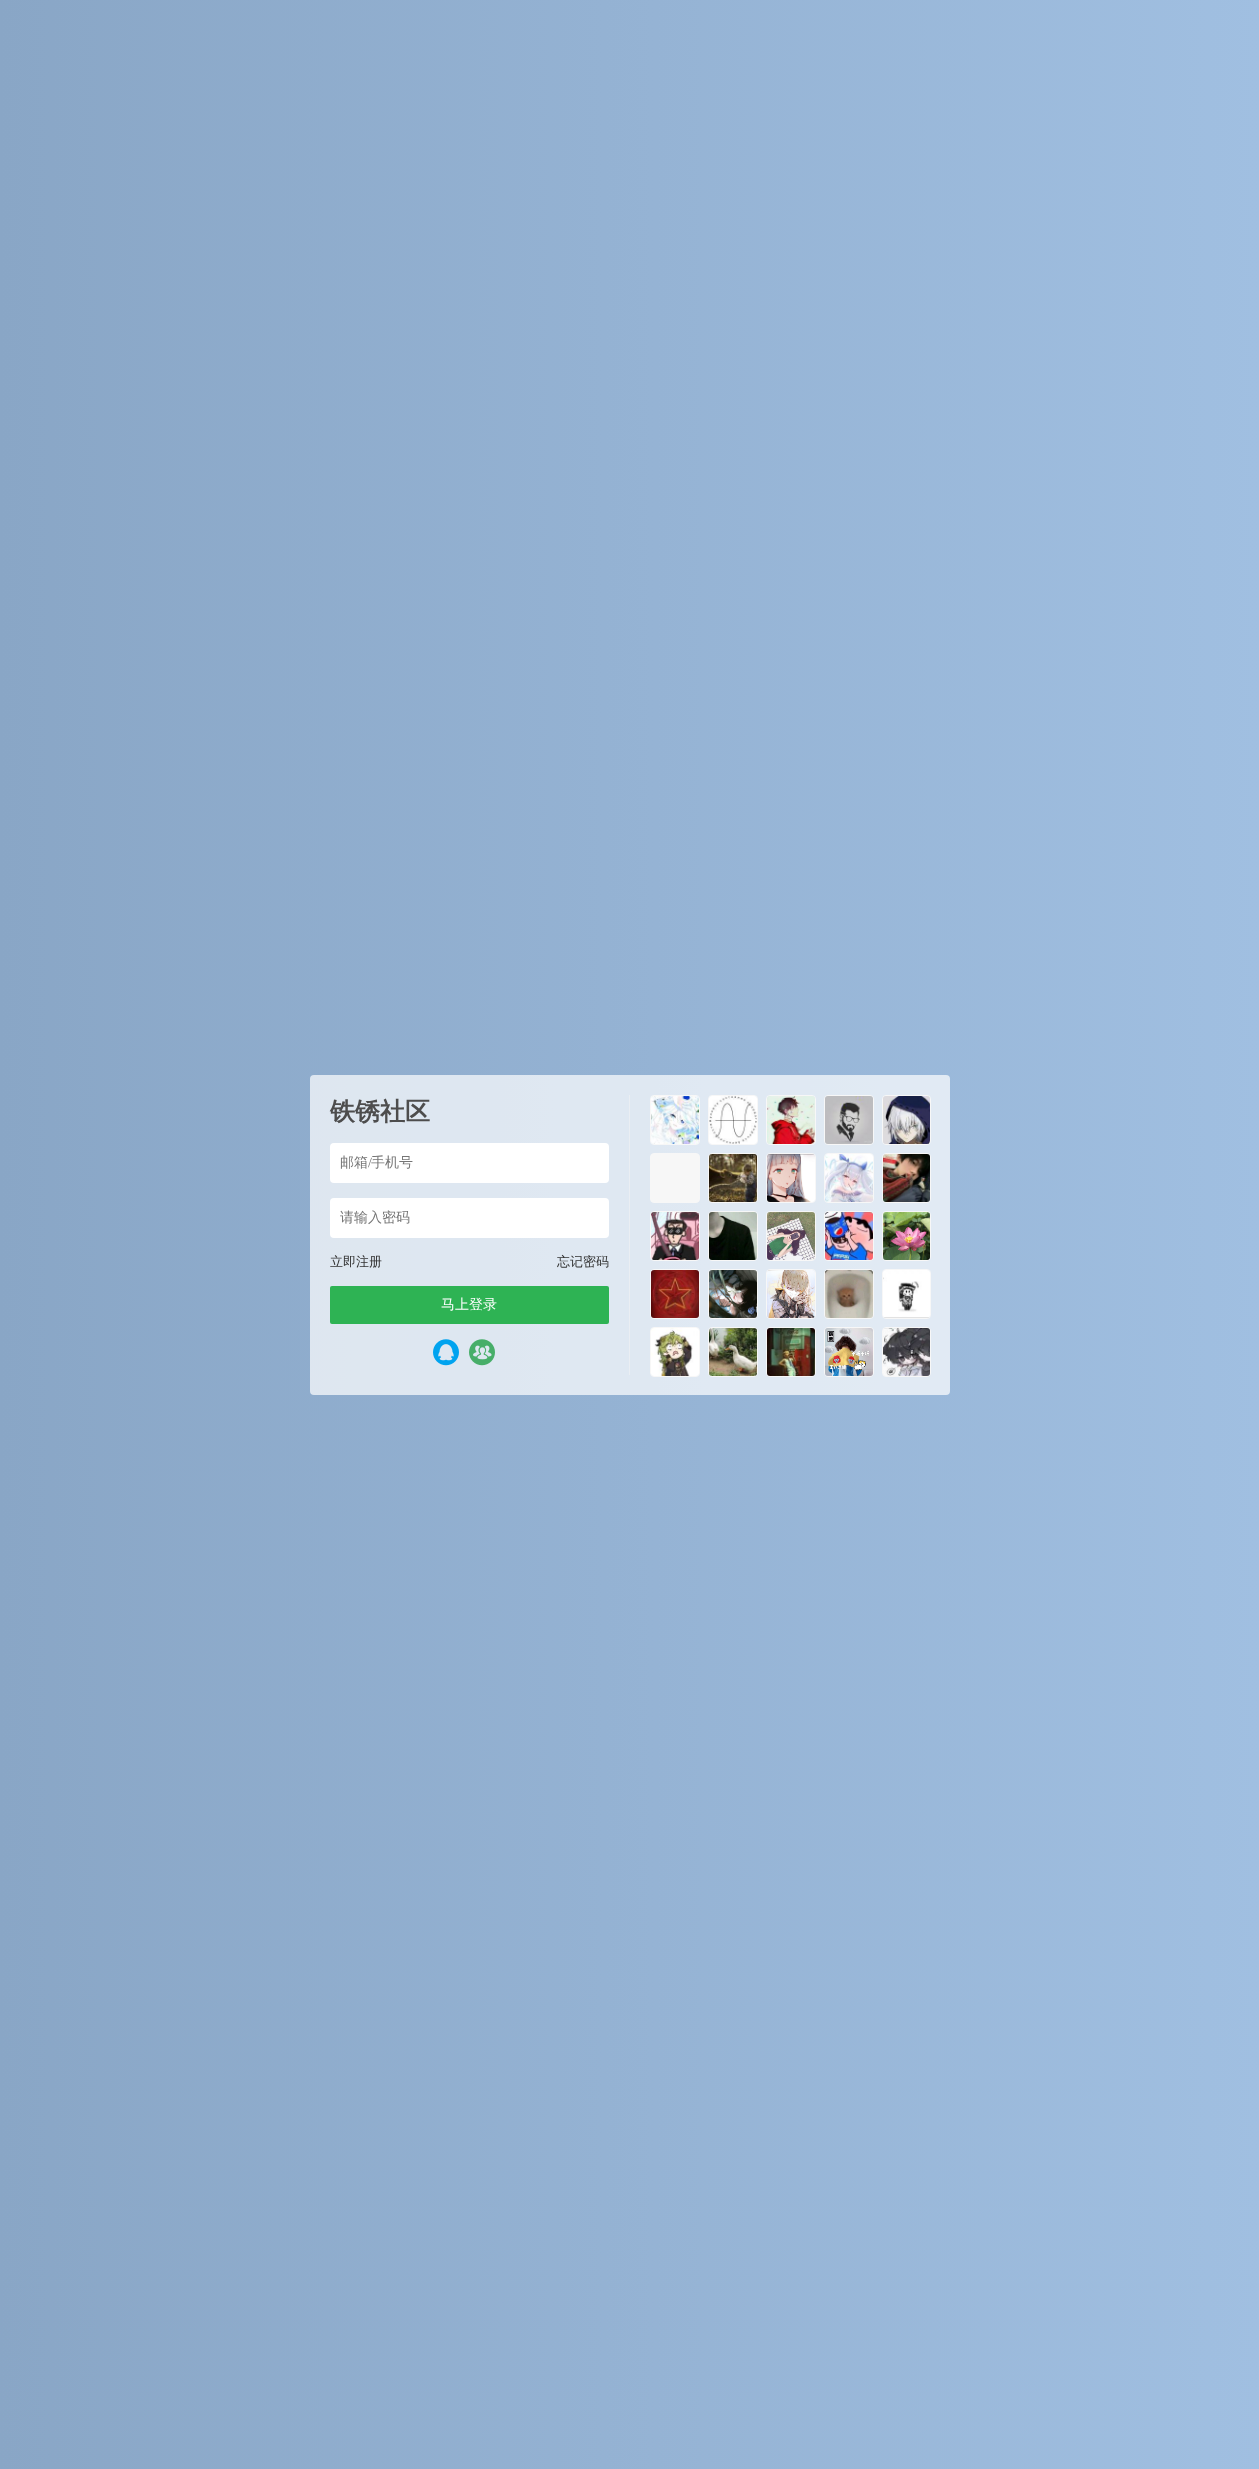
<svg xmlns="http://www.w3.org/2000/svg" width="1259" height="2469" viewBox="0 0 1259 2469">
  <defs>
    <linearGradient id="g1" gradientUnits="userSpaceOnUse" x1="0" y1="1235" x2="1259" y2="1235"><stop offset="0" stop-color="#89a6c6"/><stop offset="1" stop-color="#a0bfe1"/></linearGradient>
  </defs>
  <rect width="100%" height="100%" fill="#fff"/>
  <path d="M0 0h1259v2469H0z" fill="url(#g1)"/>
  <rect x="310" y="1075" width="640" height="320" rx="4" fill="#ffffffb3"/>
  <path d="M629 1095h1v280H629z" fill="#eaeef3"/>
  <rect x="330" y="1143" width="279" height="40" rx="4" fill="#fff"/>
  <rect x="330" y="1198" width="279" height="40" rx="4" fill="#fff"/>
  <rect x="330" y="1286" width="279" height="38" rx="2" fill="#2eb354"/>
  <image x="433" y="1339" width="26" height="27" href="img/1.png"/>
  <image x="469" y="1339" width="26" height="27" href="img/2.png"/>
  <rect x="650.5" y="1095.5" width="49" height="49" rx="3.5" fill="none" stroke="#f7f7f7"/>
  <image x="651" y="1096" width="48" height="48" href="img/3.png"/>
  <rect x="708.5" y="1095.5" width="49" height="49" rx="3.5" fill="none" stroke="#f7f7f7"/>
  <image x="709" y="1096" width="48" height="48" href="img/4.png"/>
  <rect x="766.5" y="1095.5" width="49" height="49" rx="3.5" fill="none" stroke="#f7f7f7"/>
  <image x="767" y="1096" width="48" height="48" href="img/5.png"/>
  <rect x="824.5" y="1095.5" width="49" height="49" rx="3.5" fill="none" stroke="#f7f7f7"/>
  <image x="825" y="1096" width="48" height="48" href="img/6.png"/>
  <rect x="882.5" y="1095.5" width="48" height="49" rx="3.5" fill="none" stroke="#f7f7f7"/>
  <image x="883" y="1096" width="47" height="48" href="img/7.png"/>
  <rect x="650.5" y="1153.5" width="49" height="49" rx="3.5" fill="#f7f7f7" stroke="#f7f7f7"/>
  <rect x="708.5" y="1153.5" width="49" height="49" rx="3.5" fill="none" stroke="#f7f7f7"/>
  <image x="709" y="1154" width="48" height="48" href="img/8.png"/>
  <rect x="766.5" y="1153.5" width="49" height="49" rx="3.5" fill="none" stroke="#f7f7f7"/>
  <image x="767" y="1154" width="48" height="48" href="img/9.png"/>
  <rect x="824.5" y="1153.5" width="49" height="49" rx="3.5" fill="none" stroke="#f7f7f7"/>
  <image x="825" y="1154" width="48" height="48" href="img/10.png"/>
  <rect x="882.5" y="1153.5" width="48" height="49" rx="3.5" fill="none" stroke="#f7f7f7"/>
  <image x="883" y="1154" width="47" height="48" href="img/11.png"/>
  <rect x="650.5" y="1211.5" width="49" height="49" rx="3.5" fill="none" stroke="#f7f7f7"/>
  <image x="651" y="1212" width="48" height="48" href="img/12.png"/>
  <rect x="708.5" y="1211.5" width="49" height="49" rx="3.5" fill="none" stroke="#f7f7f7"/>
  <image x="709" y="1212" width="48" height="48" href="img/13.png"/>
  <rect x="766.5" y="1211.5" width="49" height="49" rx="3.5" fill="none" stroke="#f7f7f7"/>
  <image x="767" y="1212" width="48" height="48" href="img/14.png"/>
  <rect x="824.5" y="1211.5" width="49" height="49" rx="3.5" fill="none" stroke="#f7f7f7"/>
  <image x="825" y="1212" width="48" height="48" href="img/15.png"/>
  <rect x="882.5" y="1211.5" width="48" height="49" rx="3.5" fill="none" stroke="#f7f7f7"/>
  <image x="883" y="1212" width="47" height="48" href="img/16.png"/>
  <rect x="650.5" y="1269.5" width="49" height="49" rx="3.5" fill="none" stroke="#f7f7f7"/>
  <image x="651" y="1270" width="48" height="48" href="img/17.png"/>
  <rect x="708.5" y="1269.5" width="49" height="49" rx="3.5" fill="none" stroke="#f7f7f7"/>
  <image x="709" y="1270" width="48" height="48" href="img/18.png"/>
  <rect x="766.5" y="1269.5" width="49" height="49" rx="3.5" fill="none" stroke="#f7f7f7"/>
  <image x="767" y="1270" width="48" height="48" href="img/19.png"/>
  <rect x="824.5" y="1269.5" width="49" height="49" rx="3.5" fill="none" stroke="#f7f7f7"/>
  <image x="825" y="1270" width="48" height="48" href="img/20.png"/>
  <rect x="882.5" y="1269.5" width="48" height="49" rx="3.5" fill="none" stroke="#f7f7f7"/>
  <image x="883" y="1270" width="47" height="48" href="img/21.png"/>
  <rect x="650.5" y="1327.5" width="49" height="49" rx="3.5" fill="none" stroke="#f7f7f7"/>
  <image x="651" y="1328" width="48" height="48" href="img/22.png"/>
  <rect x="708.5" y="1327.5" width="49" height="49" rx="3.5" fill="none" stroke="#f7f7f7"/>
  <image x="709" y="1328" width="48" height="48" href="img/23.png"/>
  <rect x="766.5" y="1327.5" width="49" height="49" rx="3.5" fill="none" stroke="#f7f7f7"/>
  <image x="767" y="1328" width="48" height="48" href="img/24.png"/>
  <rect x="824.5" y="1327.5" width="49" height="49" rx="3.5" fill="none" stroke="#f7f7f7"/>
  <image x="825" y="1328" width="48" height="48" href="img/25.png"/>
  <rect x="882.5" y="1327.5" width="48" height="49" rx="3.5" fill="none" stroke="#f7f7f7"/>
  <image x="883" y="1328" width="47" height="48" href="img/26.png"/>
  <text x="330" y="1120" font-family="WenQuanYi Zen Hei" font-size="25" font-weight="bold" fill="#4d4d4d">铁锈社区</text>
  <text x="340" y="1167" font-family="WenQuanYi Zen Hei" font-size="14" font-weight="500" fill="#757575">邮箱</text>
  <text x="368" y="1167" font-family="Liberation Serif" font-size="14" fill="#757575">/</text>
  <g font-family="WenQuanYi Zen Hei" font-size="14" font-weight="500" fill="#757575">
    <text x="371" y="1167">手机号</text>
    <text x="340" y="1222">请输入密码</text>
  </g>
  <g font-family="WenQuanYi Zen Hei" font-size="13" font-weight="500" fill="#333">
    <text x="330" y="1266">立即注册</text>
    <text x="557" y="1266">忘记密码</text>
  </g>
  <text x="441" y="1309" font-family="WenQuanYi Zen Hei" font-size="14" font-weight="500" fill="#fff">马上登录</text>
</svg>
